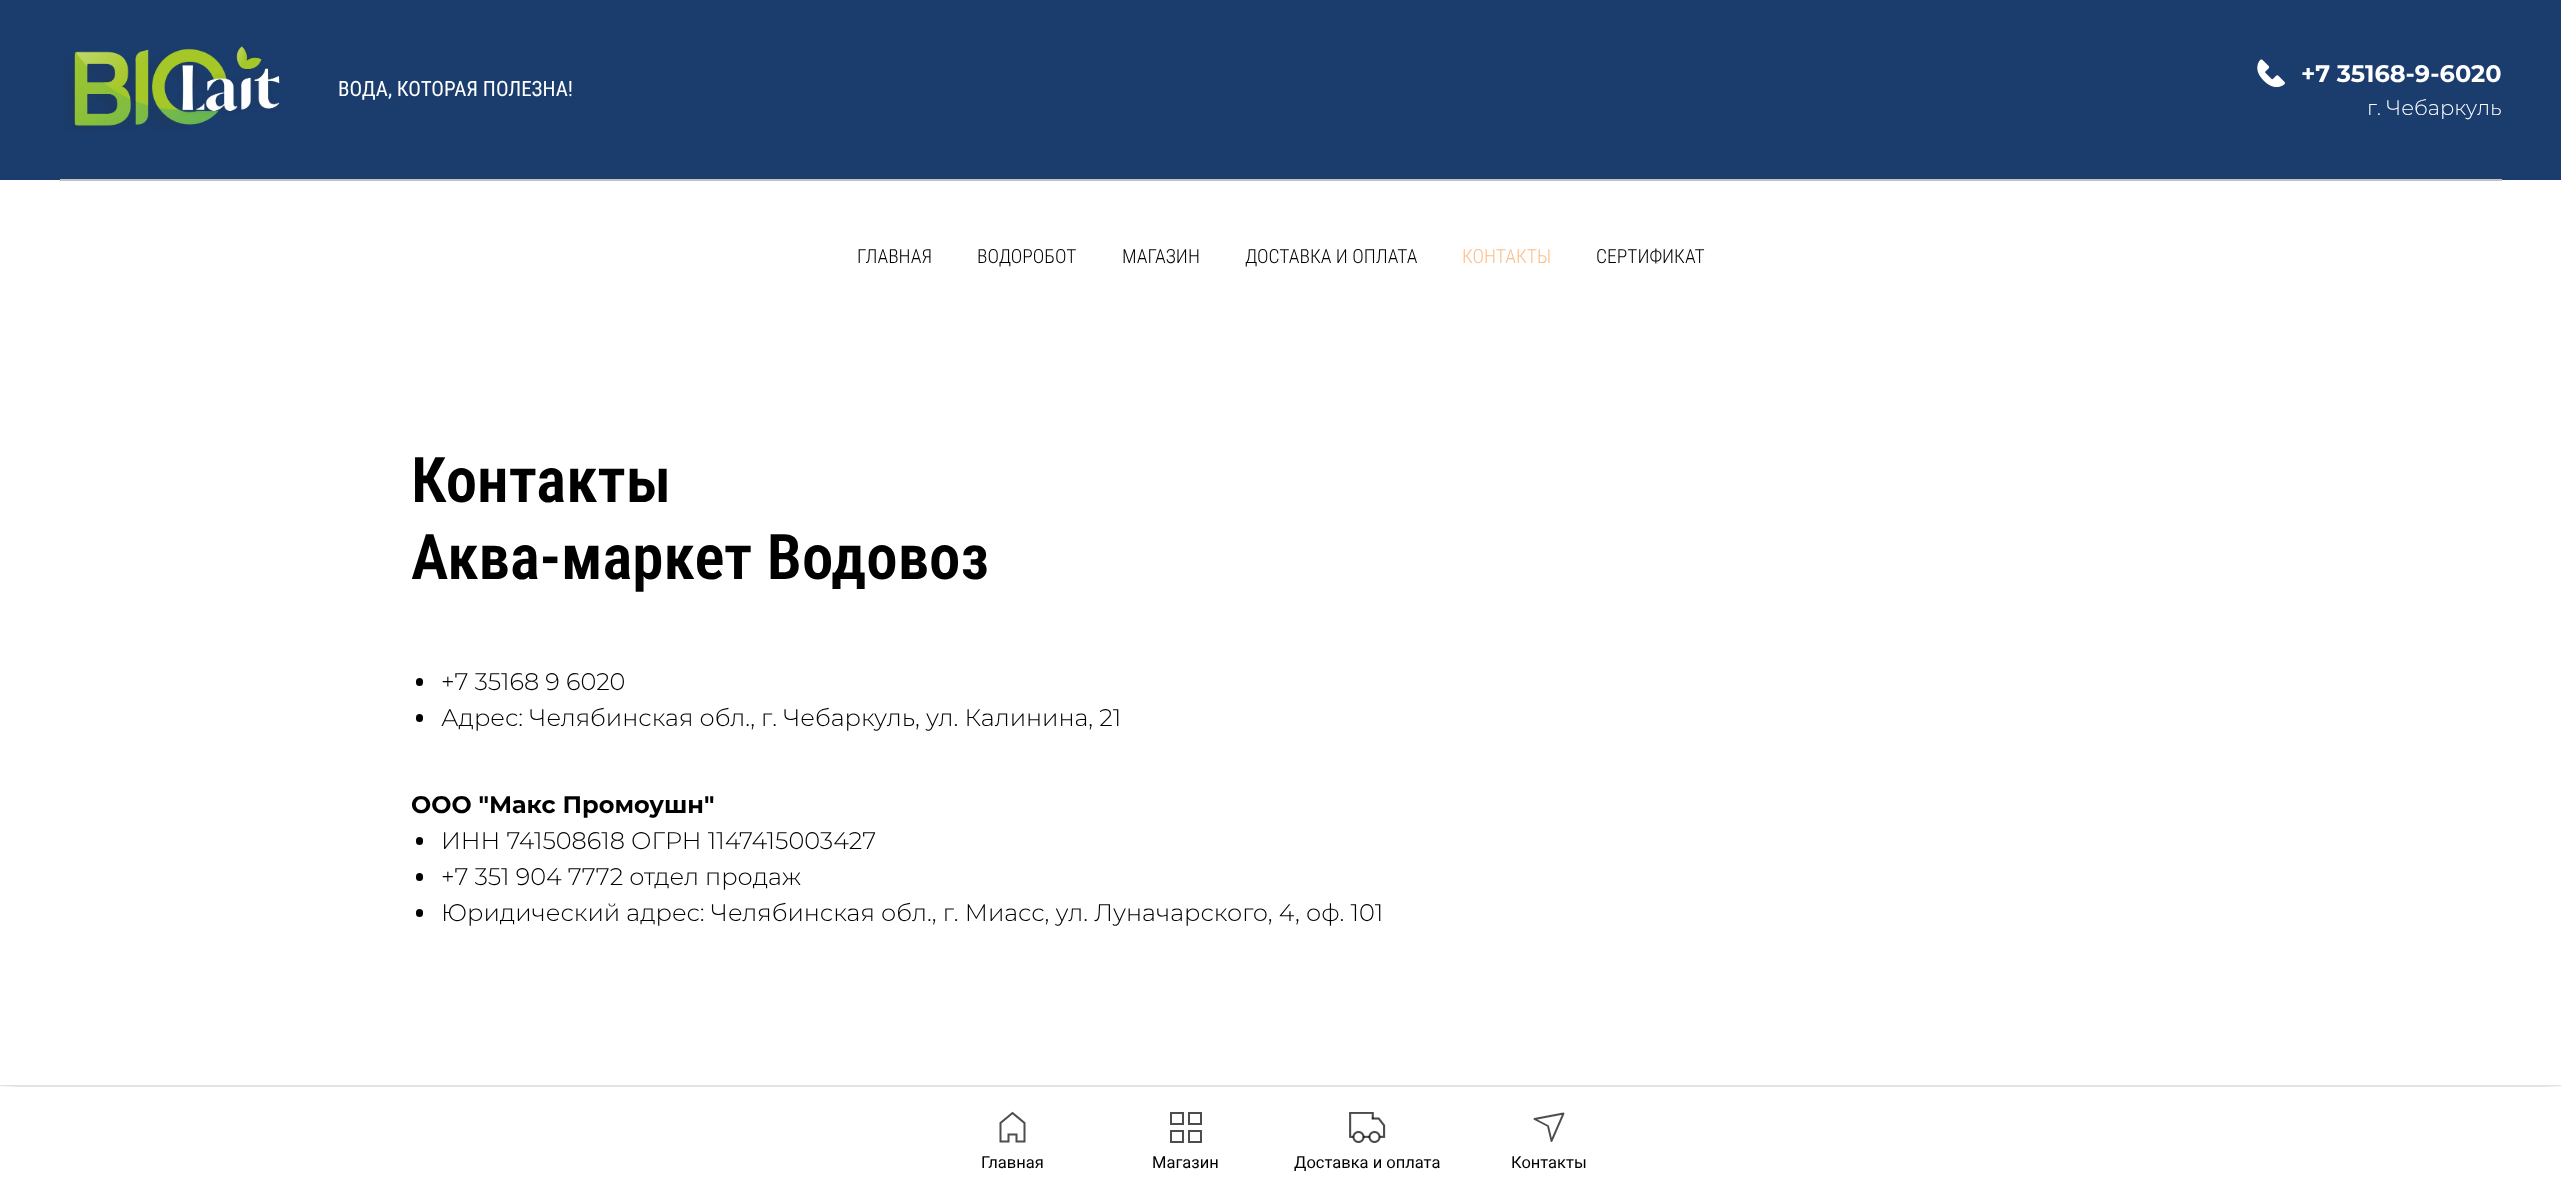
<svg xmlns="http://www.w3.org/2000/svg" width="2561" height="1195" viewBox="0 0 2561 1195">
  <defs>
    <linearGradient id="g1" gradientUnits="userSpaceOnUse" x1="21" y1="1141" x2="-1.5" y2="1141"><stop offset="0" stop-color="#fff" stop-opacity="0"/><stop offset="1" stop-color="#fff"/></linearGradient>
    <linearGradient id="g2" gradientUnits="userSpaceOnUse" x1="2541" y1="1141" x2="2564" y2="1141"><stop offset="0" stop-color="#fff" stop-opacity="0"/><stop offset="1" stop-color="#fff"/></linearGradient>
  </defs>
  <rect width="100%" height="100%" fill="#fff"/>
  <path d="M0 0h2561v180H0z" fill="#1b3d6e"/>
  <image x="64" y="46" width="216" height="86" href="img/1.png"/>
  <image x="2257" y="59" width="28" height="29" href="img/2.png"/>
  <path d="M60 179h2442v2H60z" fill="#c2c2c2"/>
  <rect x="416" y="678" width="7" height="8" rx="3.5" fill="#000"/>
  <rect x="416" y="714" width="7" height="8" rx="3.5" fill="#000"/>
  <rect x="416" y="837" width="7" height="8" rx="3.5" fill="#000"/>
  <rect x="416" y="873" width="7" height="8" rx="3.5" fill="#000"/>
  <rect x="416" y="909" width="7" height="8" rx="3.5" fill="#000"/>
  <path d="M0 1085h2561v2H0z" fill="#e2e2e2"/>
  <path d="M0 1086h19v1H0z" fill="url(#g1)"/>
  <path d="M2543 1086h18v1H2543z" fill="url(#g2)"/>
  <path d="M1024.5 1141.5H1016.5V1134.5H1008.5V1141.5H1000.5V1123L1012.5 1113L1024.5 1123Z" fill="none" stroke="#4d4d4d" stroke-width="2"/>
  <path d="M1171 1113h12v11H1171z" fill="none" stroke="#4d4d4d" stroke-width="2"/>
  <path d="M1189 1113h12v11H1189z" fill="none" stroke="#4d4d4d" stroke-width="2"/>
  <path d="M1171 1131h12v11H1171z" fill="none" stroke="#4d4d4d" stroke-width="2"/>
  <path d="M1189 1131h12v11H1189z" fill="none" stroke="#4d4d4d" stroke-width="2"/>
  <image x="1349" y="1112" width="37" height="31" href="img/3.png"/>
  <path d="M1563.5 1113.5L1534.5 1119L1548 1126L1551.5 1141Z" fill="none" stroke="#4d4d4d" stroke-width="1.9" stroke-linejoin="round"/>
  <text x="338" y="96" font-family="Roboto Condensed" font-size="21" fill="#fff">ВОДА, КОТОРАЯ ПОЛЕЗНА!</text>
  <text x="2301" y="82" font-family="Montserrat" font-size="24" font-weight="bold" fill="#fff">+7 35168-9-6020</text>
  <text x="2367" y="115" font-family="Montserrat" font-size="21" font-weight="300" fill="#fff">г. Чебаркуль</text>
  <g font-family="Roboto Condensed" font-size="19.5" font-weight="300" fill="#000">
    <text x="857" y="263">ГЛАВНАЯ</text>
    <text x="977" y="263">ВОДОРОБОТ</text>
    <text x="1122" y="263">МАГАЗИН</text>
    <text x="1245" y="263">ДОСТАВКА И ОПЛАТА</text>
  </g>
  <text x="1462" y="263" font-family="Roboto Condensed" font-size="19.5" font-weight="300" fill="#fcbd89">КОНТАКТЫ</text>
  <text x="1596" y="263" font-family="Roboto Condensed" font-size="19.5" font-weight="300" fill="#000">СЕРТИФИКАТ</text>
  <g font-family="Roboto Condensed" font-size="63" font-weight="600" fill="#000">
    <text x="411" y="502">Контакты</text>
    <text x="411" y="579">Аква-маркет Водовоз</text>
  </g>
  <g font-family="Montserrat" font-size="24" font-weight="300" fill="#000">
    <text x="441" y="690">+7 35168 9 6020</text>
    <text x="441" y="726">Адрес: Челябинская обл., г. Чебаркуль, ул. Калинина, 21</text>
  </g>
  <text x="411" y="813" font-family="Montserrat" font-size="24" font-weight="bold" fill="#000">ООО "Макс Промоушн"</text>
  <g font-family="Montserrat" font-size="24" font-weight="300" fill="#000">
    <text x="441" y="849">ИНН 741508618 ОГРН 1147415003427</text>
    <text x="441" y="885">+7 351 904 7772 отдел продаж</text>
    <text x="441" y="921">Юридический адрес: Челябинская обл., г. Миасс, ул. Луначарского, 4, оф. 101</text>
  </g>
  <g font-family="Roboto" font-size="16.5" fill="#000">
    <text x="981" y="1168">Главная</text>
    <text x="1152" y="1168">Магазин</text>
    <text x="1294" y="1168">Доставка и оплата</text>
    <text x="1511" y="1168">Контакты</text>
  </g>
</svg>
